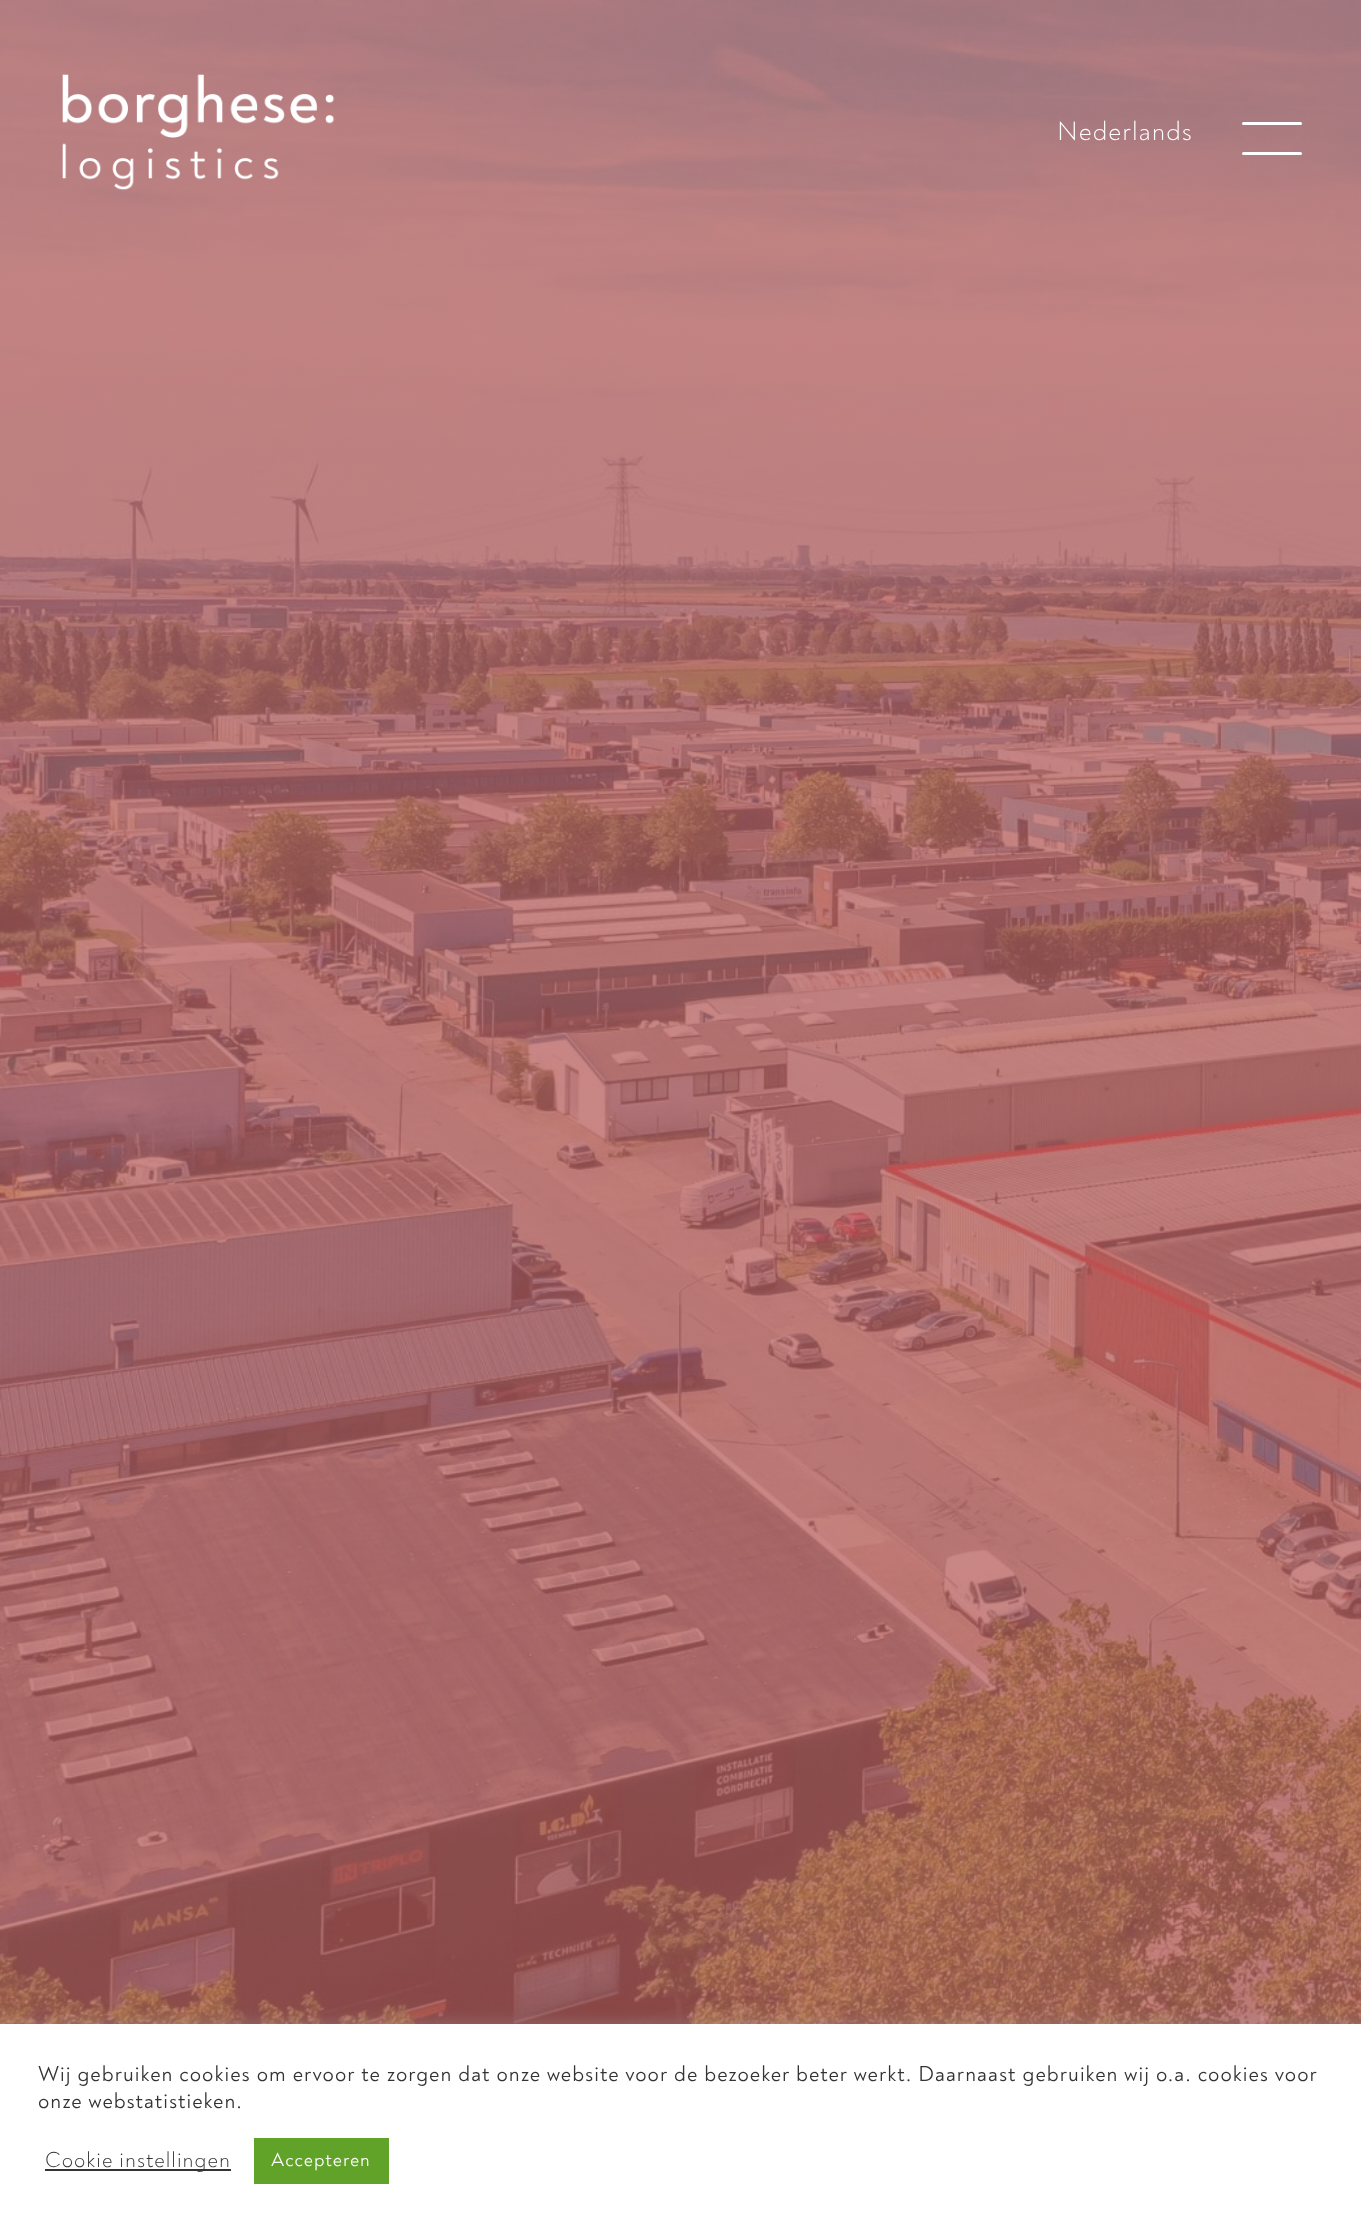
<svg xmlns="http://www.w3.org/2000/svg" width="1361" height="2229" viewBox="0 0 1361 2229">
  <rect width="100%" height="100%" fill="#fff"/>
  <image x="0" y="0" width="1361" height="2024" href="img/1.png"/>
  <image x="62" y="74" width="273" height="116" href="img/2.png"/>
  <rect x="1242" y="122" width="60" height="3" rx="1.5" fill="#fff"/>
  <rect x="1242" y="152" width="60" height="3" rx="1.5" fill="#fff"/>
  <path d="M0 2022h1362v206H0z" fill="#acabab4d" filter="blur(7.5px)"/>
  <path d="M0 2024h1361v205H0z" fill="#fff"/>
  <path d="M45 2169h186v2H45z" fill="#333"/>
  <path d="M254 2138h135v46H254z" fill="#61a229"/>
  <text x="1057" y="140" font-family="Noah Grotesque" font-size="27" font-weight="300" letter-spacing="1.05" fill="#fff">Nederlands</text>
  <g font-family="NoahGrotesque" font-size="22" letter-spacing="1.05" fill="#333">
    <text x="38" y="2081">Wij gebruiken cookies om ervoor te zorgen dat onze website voor de bezoeker beter werkt. Daarnaast gebruiken wij o.a. cookies voor</text>
    <text x="38" y="2108">onze webstatistieken.</text>
  </g>
  <text x="45" y="2167" font-family="Noah Grotesque" font-size="22" font-weight="300" letter-spacing="1.05" fill="#333">Cookie instellingen</text>
  <text x="271" y="2166" font-family="NoahGrotesque" font-size="19.5" letter-spacing="1.05" fill="#fff">Accepteren</text>
</svg>
